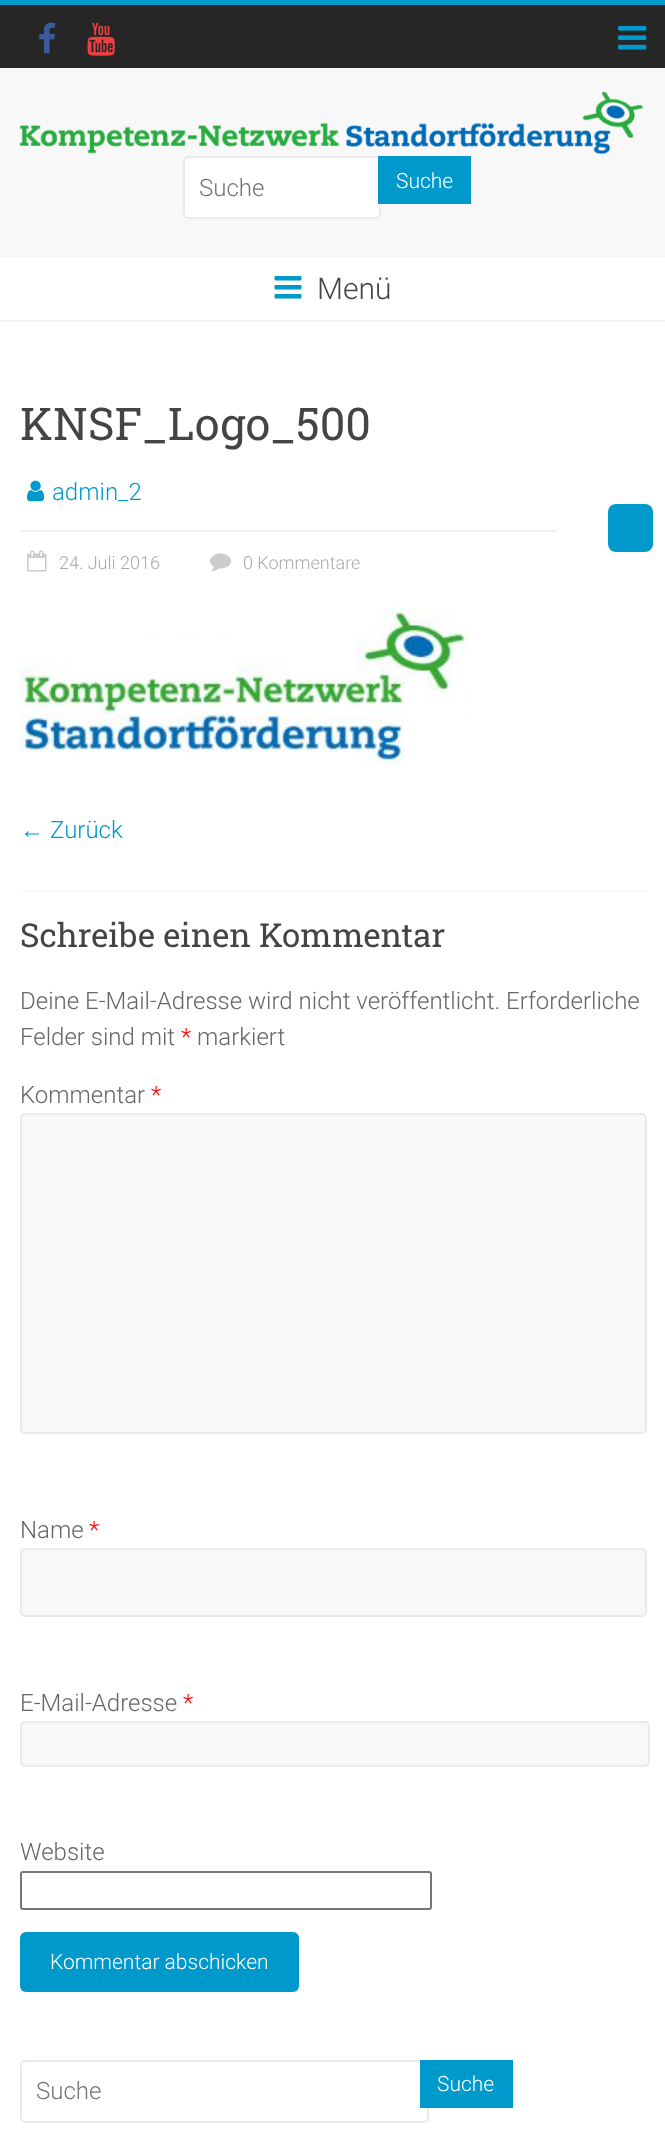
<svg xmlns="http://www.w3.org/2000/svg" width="665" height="2140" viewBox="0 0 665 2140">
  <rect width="100%" height="100%" fill="#fff"/>
  <path d="M0 0h665v5H0z" fill="#09c"/>
  <path d="M0 5h665v63H0z" fill="#262626"/>
  <image x="39" y="22" width="17" height="32" href="img/1.png"/>
  <image x="87" y="22" width="28" height="34" href="img/2.png"/>
  <image x="618" y="25" width="29" height="25" href="img/3.png"/>
  <path d="M0 68h665v189H0z" fill="#f8f8f8"/>
  <path d="M0 320h665v2H0z" fill="#f2f2f2"/>
  <image x="19" y="91" width="625" height="64" href="img/4.png"/>
  <rect x="184" y="157" width="196" height="61" rx="4" fill="#fff" stroke="#eaeaea" stroke-width="2"/>
  <path d="M378 156h93v48H378z" fill="#09c"/>
  <image x="274" y="276" width="28" height="23" href="img/5.png"/>
  <image x="27" y="480" width="18" height="22" href="img/6.png"/>
  <path d="M20 530h537v2H20z" fill="#f2f2f2"/>
  <rect x="608" y="504" width="45" height="48" rx="8" fill="#09c"/>
  <image x="27" y="550" width="20" height="22" href="img/7.png"/>
  <image x="210" y="553" width="21" height="19" href="img/8.png"/>
  <image x="19" y="607" width="451" height="158" href="img/9.png"/>
  <path d="M20 890h627v2H20z" fill="#f8f8f8"/>
  <rect x="21" y="1114" width="625" height="319" rx="4" fill="#f8f8f8" stroke="#eaeaea" stroke-width="2"/>
  <rect x="21" y="1549" width="625" height="67" rx="4" fill="#f8f8f8" stroke="#eaeaea" stroke-width="2"/>
  <rect x="21" y="1722" width="628" height="44" rx="4" fill="#f8f8f8" stroke="#eaeaea" stroke-width="2"/>
  <rect x="21" y="1872" width="410" height="37" rx="2" fill="none" stroke="#767676" stroke-width="2"/>
  <rect x="20" y="1932" width="279" height="60" rx="6" fill="#09c"/>
  <rect x="21" y="2061" width="407" height="61" rx="4" fill="none" stroke="#eaeaea" stroke-width="2"/>
  <path d="M420 2060h93v48H420z" fill="#09c"/>
  <text x="199" y="196" font-family="Roboto" font-size="24" font-weight="300" fill="#757575">Suche</text>
  <text x="396" y="188" font-family="Roboto" font-size="21" font-weight="300" fill="#fff">Suche</text>
  <text x="317" y="299" font-family="Roboto" font-size="30" font-weight="300" fill="#444">Menü</text>
  <text x="20" y="440" font-family="Roboto Slab" font-size="45" fill="#444">KNSF_Logo_500</text>
  <text x="52" y="500" font-family="Roboto" font-size="24" font-weight="300" fill="#09c">admin_2</text>
  <g font-family="Roboto" font-size="18" font-weight="300" fill="#aaa">
    <text x="59" y="569">24. Juli 2016</text>
    <text x="243" y="569">0 Kommentare</text>
  </g>
  <text x="20" y="838" font-family="Liberation Sans" font-size="24" fill="#09c">←</text>
  <text x="50" y="838" font-family="Roboto" font-size="24" font-weight="300" fill="#09c">Zurück</text>
  <text x="20" y="947" font-family="Roboto Slab" font-size="33" fill="#444">Schreibe einen Kommentar</text>
  <g font-family="Roboto" font-size="24" font-weight="300" fill="#666">
    <text x="20" y="1009">Deine E-Mail-Adresse wird nicht veröffentlicht. Erforderliche</text>
    <text x="20" y="1045">Felder sind mit</text>
  </g>
  <text x="181" y="1045" font-family="Roboto" font-size="24" font-weight="300" fill="#f00">*</text>
  <g font-family="Roboto" font-size="24" font-weight="300" fill="#666">
    <text x="197" y="1045">markiert</text>
    <text x="20" y="1103">Kommentar</text>
  </g>
  <text x="151" y="1103" font-family="Roboto" font-size="24" font-weight="300" fill="#f00">*</text>
  <text x="20" y="1538" font-family="Roboto" font-size="24" font-weight="300" fill="#666">Name</text>
  <text x="89" y="1538" font-family="Roboto" font-size="24" font-weight="300" fill="#f00">*</text>
  <text x="20" y="1711" font-family="Roboto" font-size="24" font-weight="300" fill="#666">E-Mail-Adresse</text>
  <text x="183" y="1711" font-family="Roboto" font-size="24" font-weight="300" fill="#f00">*</text>
  <text x="20" y="1860" font-family="Roboto" font-size="24" font-weight="300" fill="#666">Website</text>
  <text x="50" y="1969" font-family="Roboto" font-size="21" font-weight="300" fill="#fff">Kommentar abschicken</text>
  <text x="36" y="2099" font-family="Roboto" font-size="24" font-weight="300" fill="#757575">Suche</text>
  <text x="437" y="2091" font-family="Roboto" font-size="21" font-weight="300" fill="#fff">Suche</text>
</svg>
